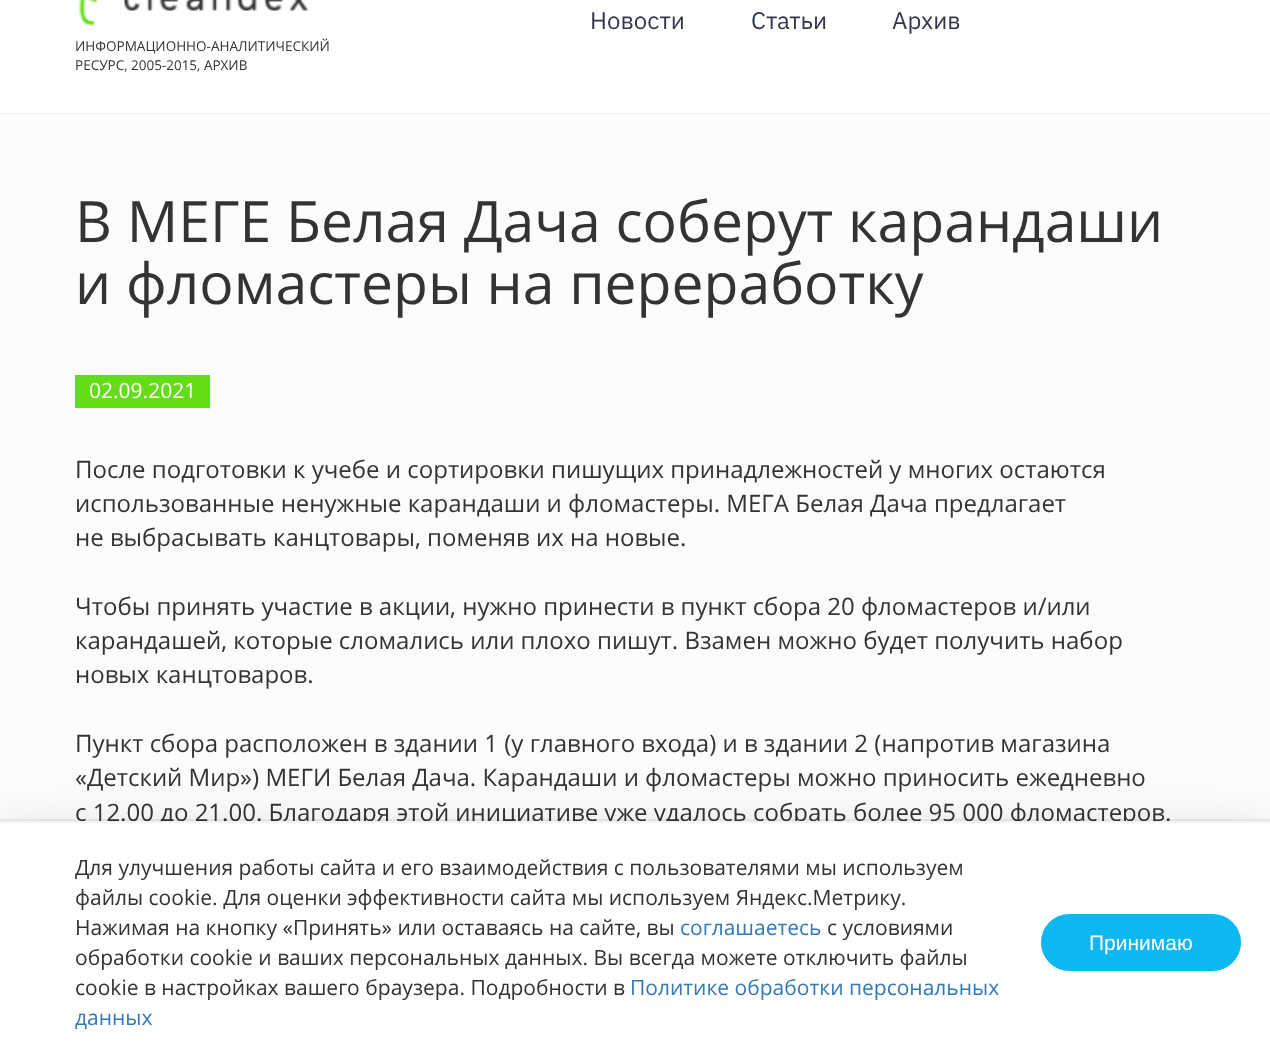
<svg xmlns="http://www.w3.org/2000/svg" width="1270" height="1062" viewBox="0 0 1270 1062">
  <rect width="100%" height="100%" fill="#fff"/>
  <path d="M0 113h1270v1H0z" fill="#edf0f4"/>
  <image x="78" y="0" width="231" height="26" href="img/1.png"/>
  <path d="M0 114h1270v707H0z" fill="#fcfcfc"/>
  <path d="M75 375h135v33H75z" fill="#64dd17"/>
  <g font-family="IBM Plex Sans" font-size="24" fill="#33374c">
    <text x="590" y="29">Новости</text>
    <text x="751" y="29">Статьи</text>
    <text x="892" y="29">Архив</text>
  </g>
  <g font-family="Open Sans" font-size="13.5" fill="#333">
    <text x="75" y="51">ИНФОРМАЦИОННО-АНАЛИТИЧЕСКИЙ</text>
    <text x="75" y="70">РЕСУРС, 2005-2015, АРХИВ</text>
  </g>
  <g font-family="Open Sans" font-size="57" fill="#333">
    <text x="75" y="242">В МЕГЕ Белая Дача соберут карандаши</text>
    <text x="75" y="304">и фломастеры на переработку</text>
  </g>
  <text x="89" y="398" font-family="Open Sans" font-size="21" fill="#fff">02.09.2021</text>
  <g font-family="Open Sans" font-size="24" fill="#333">
    <text x="75" y="478">После подготовки к учебе и сортировки пишущих принадлежностей у многих остаются</text>
    <text x="75" y="512">использованные ненужные карандаши и фломастеры. МЕГА Белая Дача предлагает</text>
    <text x="75" y="546">не выбрасывать канцтовары, поменяв их на новые.</text>
    <text x="75" y="615">Чтобы принять участие в акции, нужно принести в пункт сбора 20 фломастеров и/или</text>
    <text x="75" y="649">карандашей, которые сломались или плохо пишут. Взамен можно будет получить набор</text>
    <text x="75" y="683">новых канцтоваров.</text>
    <text x="75" y="752">Пункт сбора расположен в здании 1 (у главного входа) и в здании 2 (напротив магазина</text>
    <text x="75" y="786">«Детский Мир») МЕГИ Белая Дача. Карандаши и фломастеры можно приносить ежедневно</text>
    <text x="75" y="821">с 12.00 до 21.00. Благодаря этой инициативе уже удалось собрать более 95 000 фломастеров.</text>
  </g>
  <path d="M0 820h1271v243H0z" fill="none" stroke="#0000000f" stroke-width="2"/>
  <path d="M0 836h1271v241H0z" fill="#00000029" filter="blur(27px)"/>
  <path d="M0 823h1270v239H0z" fill="#fff"/>
  <path d="M0 821h1270v2H0z" fill="#f1f3f6"/>
  <g font-family="Open Sans" font-size="21" fill="#333">
    <text x="75" y="875">Для улучшения работы сайта и его взаимодействия с пользователями мы используем</text>
    <text x="75" y="905">файлы cookie. Для оценки эффективности сайта мы используем Яндекс.Метрику.</text>
    <text x="75" y="935">Нажимая на кнопку «Принять» или оставаясь на сайте, вы</text>
  </g>
  <text x="680" y="935" font-family="Open Sans" font-size="21" fill="#337ab7">соглашаетесь</text>
  <g font-family="Open Sans" font-size="21" fill="#333">
    <text x="827" y="935">с условиями</text>
    <text x="75" y="965">обработки cookie и ваших персональных данных. Вы всегда можете отключить файлы</text>
    <text x="75" y="995">cookie в настройках вашего браузера. Подробности в</text>
  </g>
  <g font-family="Open Sans" font-size="21" fill="#337ab7">
    <text x="630" y="995">Политике обработки персональных</text>
    <text x="75" y="1025">данных</text>
  </g>
  <rect x="1042.5" y="915.5" width="197" height="54" rx="27" fill="#0db8f1" stroke="#0db8f1" stroke-width="3"/>
  <text x="1089" y="950" font-family="Liberation Sans" font-size="21" fill="#fff">Принимаю</text>
</svg>
